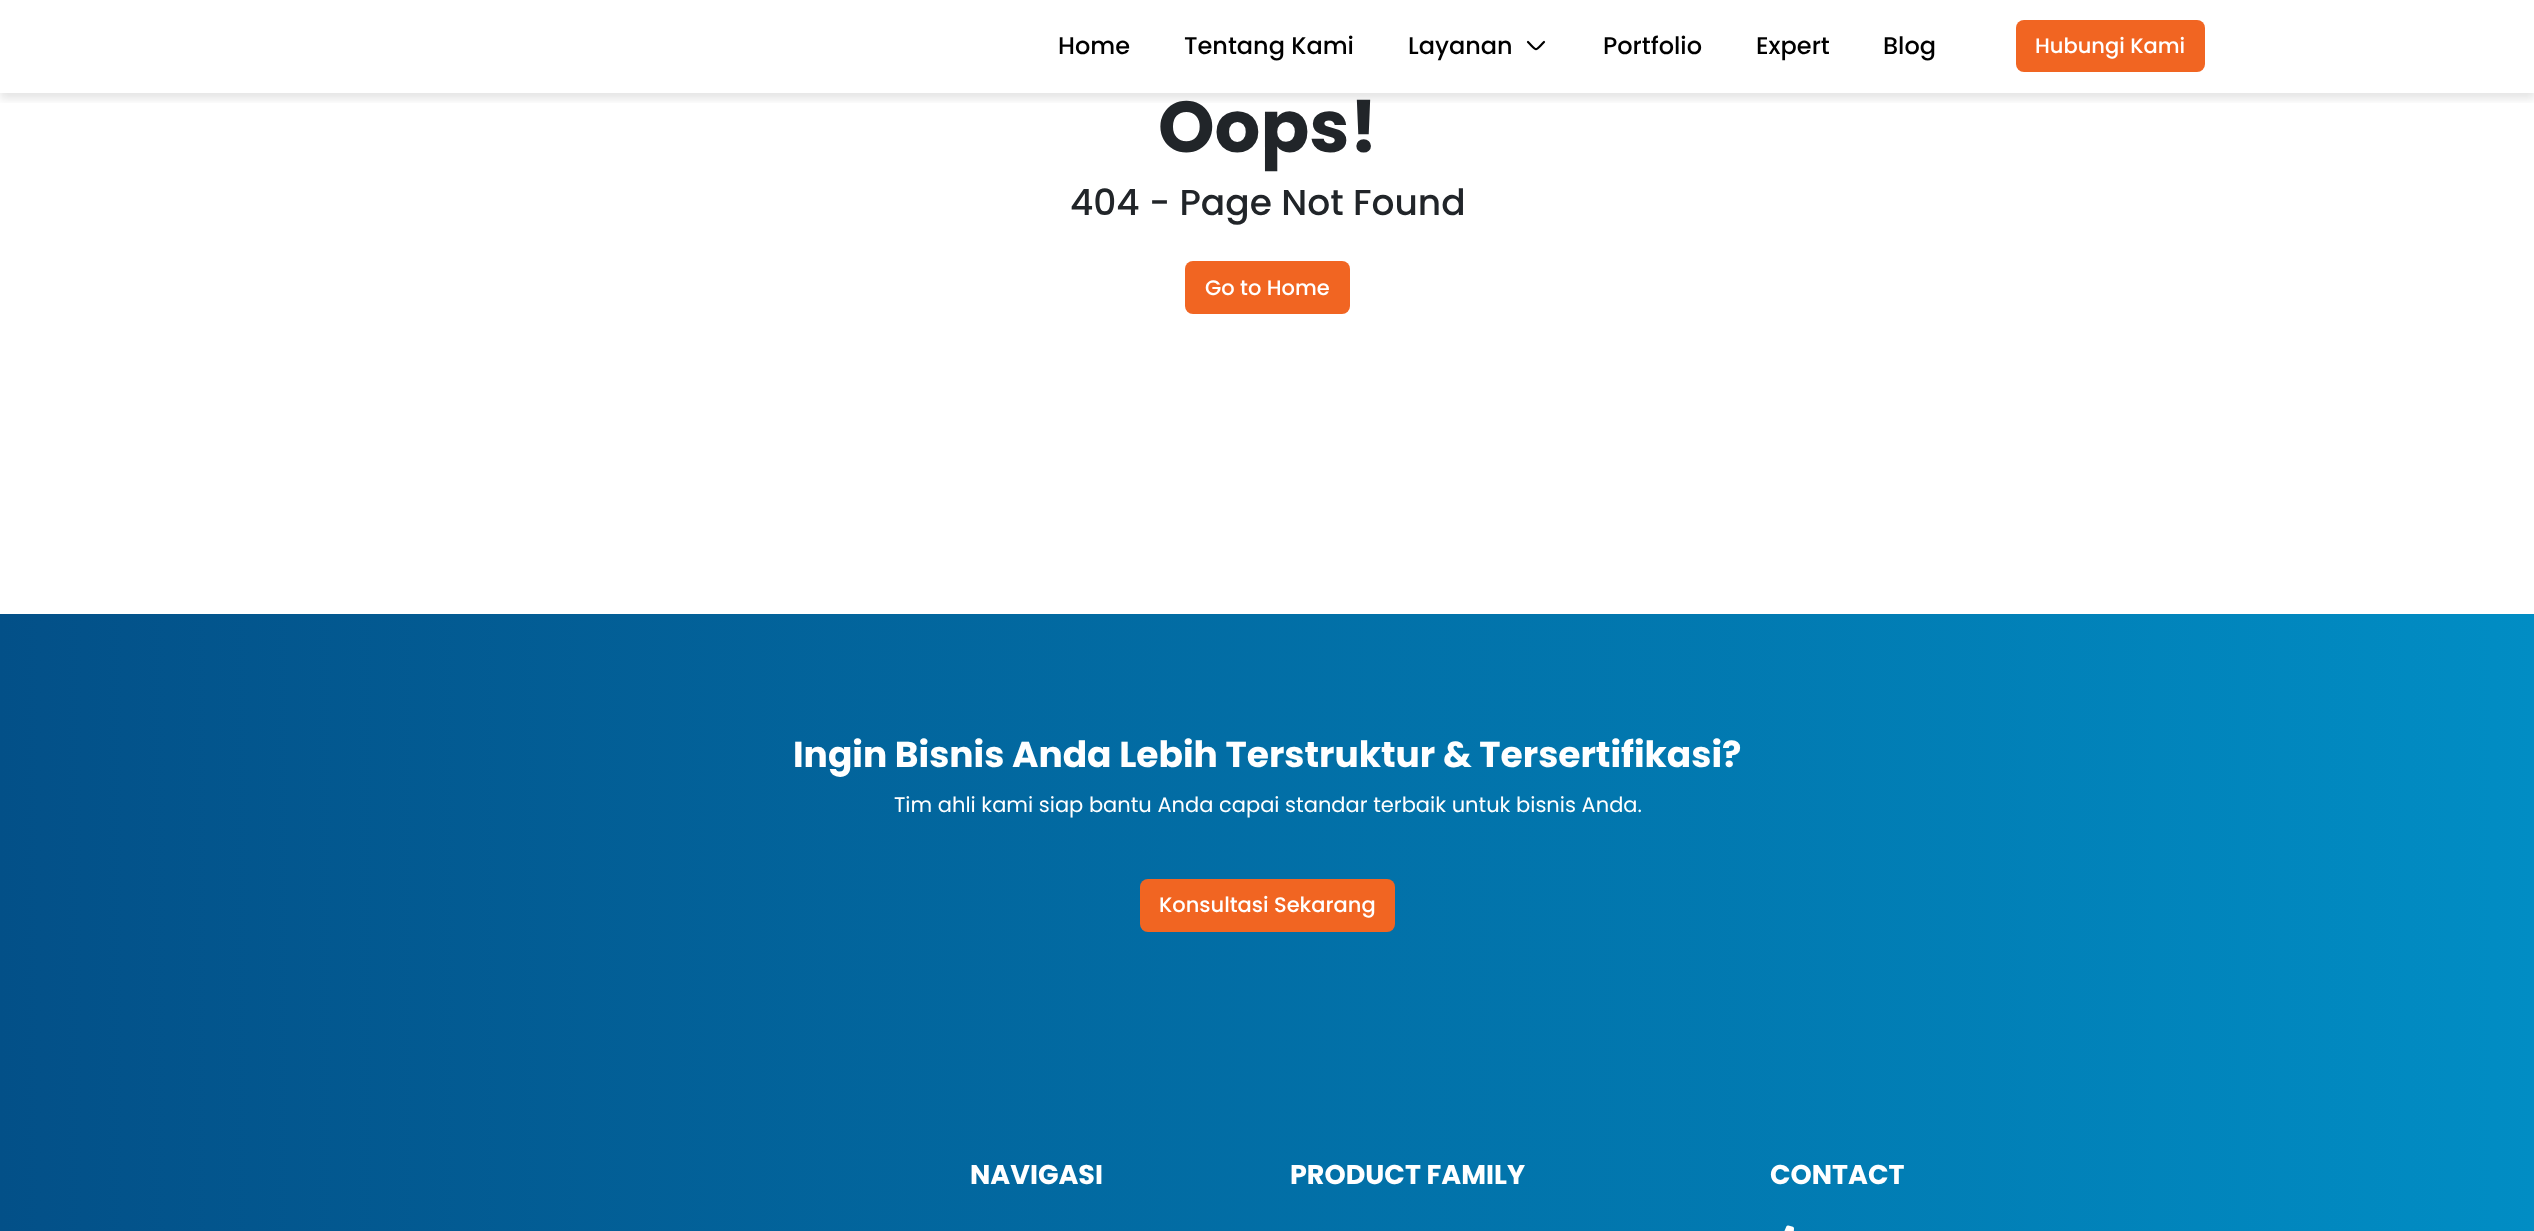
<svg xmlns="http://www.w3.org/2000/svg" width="2534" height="1231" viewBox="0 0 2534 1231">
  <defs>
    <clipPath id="clip1"><path d="M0 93h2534v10H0z"/></clipPath>
    <linearGradient id="g1" gradientUnits="userSpaceOnUse" x1="0" y1="833" x2="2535" y2="833"><stop offset="0" stop-color="#035088"/><stop offset="1" stop-color="#018dc4"/></linearGradient>
    <linearGradient id="g2" gradientUnits="userSpaceOnUse" x1="0" y1="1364" x2="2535" y2="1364"><stop offset="0" stop-color="#035088"/><stop offset="1" stop-color="#018dc4"/></linearGradient>
  </defs>
  <rect width="100%" height="100%" fill="#fff"/>
  <g clip-path="url(#clip1)">
    <path d="M0 6h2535v93H0z" fill="#0000001a" filter="blur(4.5px)"/>
  </g>
  <path d="M1544 42C1534.5 51.5 1537.5 51.5 1528 42" fill="none" stroke="#000" stroke-width="2.2" stroke-linecap="round" stroke-linejoin="round"/>
  <rect x="2016" y="20" width="189" height="52" rx="8" fill="#f16522"/>
  <rect x="1185" y="261" width="165" height="53" rx="8" fill="#f16522"/>
  <path d="M0 614h2534v438H0z" fill="url(#g1)"/>
  <rect x="1140" y="879" width="255" height="53" rx="8" fill="#f16522"/>
  <path d="M0 1052h2534v179H0z" fill="url(#g2)"/>
  <image x="1784" y="1225" width="10" height="6" href="img/1.png"/>
  <g font-family="Poppins" font-size="24" font-weight="500" fill="#000">
    <text x="1058" y="54">Home</text>
    <text x="1184" y="54">Tentang Kami</text>
    <text x="1408" y="54">Layanan</text>
    <text x="1603" y="54">Portfolio</text>
    <text x="1756" y="54">Expert</text>
    <text x="1883" y="54">Blog</text>
  </g>
  <text x="2035" y="53" font-family="Poppins" font-size="21" font-weight="500" fill="#fff">Hubungi Kami</text>
  <text x="1158" y="152" font-family="Poppins" font-size="72" font-weight="bold" fill="#212529">Oops!</text>
  <text x="1070" y="215" font-family="Poppins" font-size="36" font-weight="500" fill="#212529">404 - Page Not Found</text>
  <text x="1205" y="295" font-family="Poppins" font-size="21" font-weight="500" fill="#fff">Go to Home</text>
  <text x="793" y="767" font-family="Poppins" font-size="36" font-weight="bold" fill="#fff">Ingin Bisnis Anda Lebih Terstruktur &amp; Tersertifikasi?</text>
  <text x="894" y="812" font-family="Poppins" font-size="21" fill="#fff">Tim ahli kami siap bantu Anda capai standar terbaik untuk bisnis Anda.</text>
  <text x="1159" y="912" font-family="Poppins" font-size="21" font-weight="500" fill="#fff">Konsultasi Sekarang</text>
  <g font-family="Poppins" font-size="27" font-weight="bold" fill="#fff">
    <text x="970" y="1184">NAVIGASI</text>
    <text x="1290" y="1184">PRODUCT FAMILY</text>
    <text x="1770" y="1184">CONTACT</text>
  </g>
</svg>
